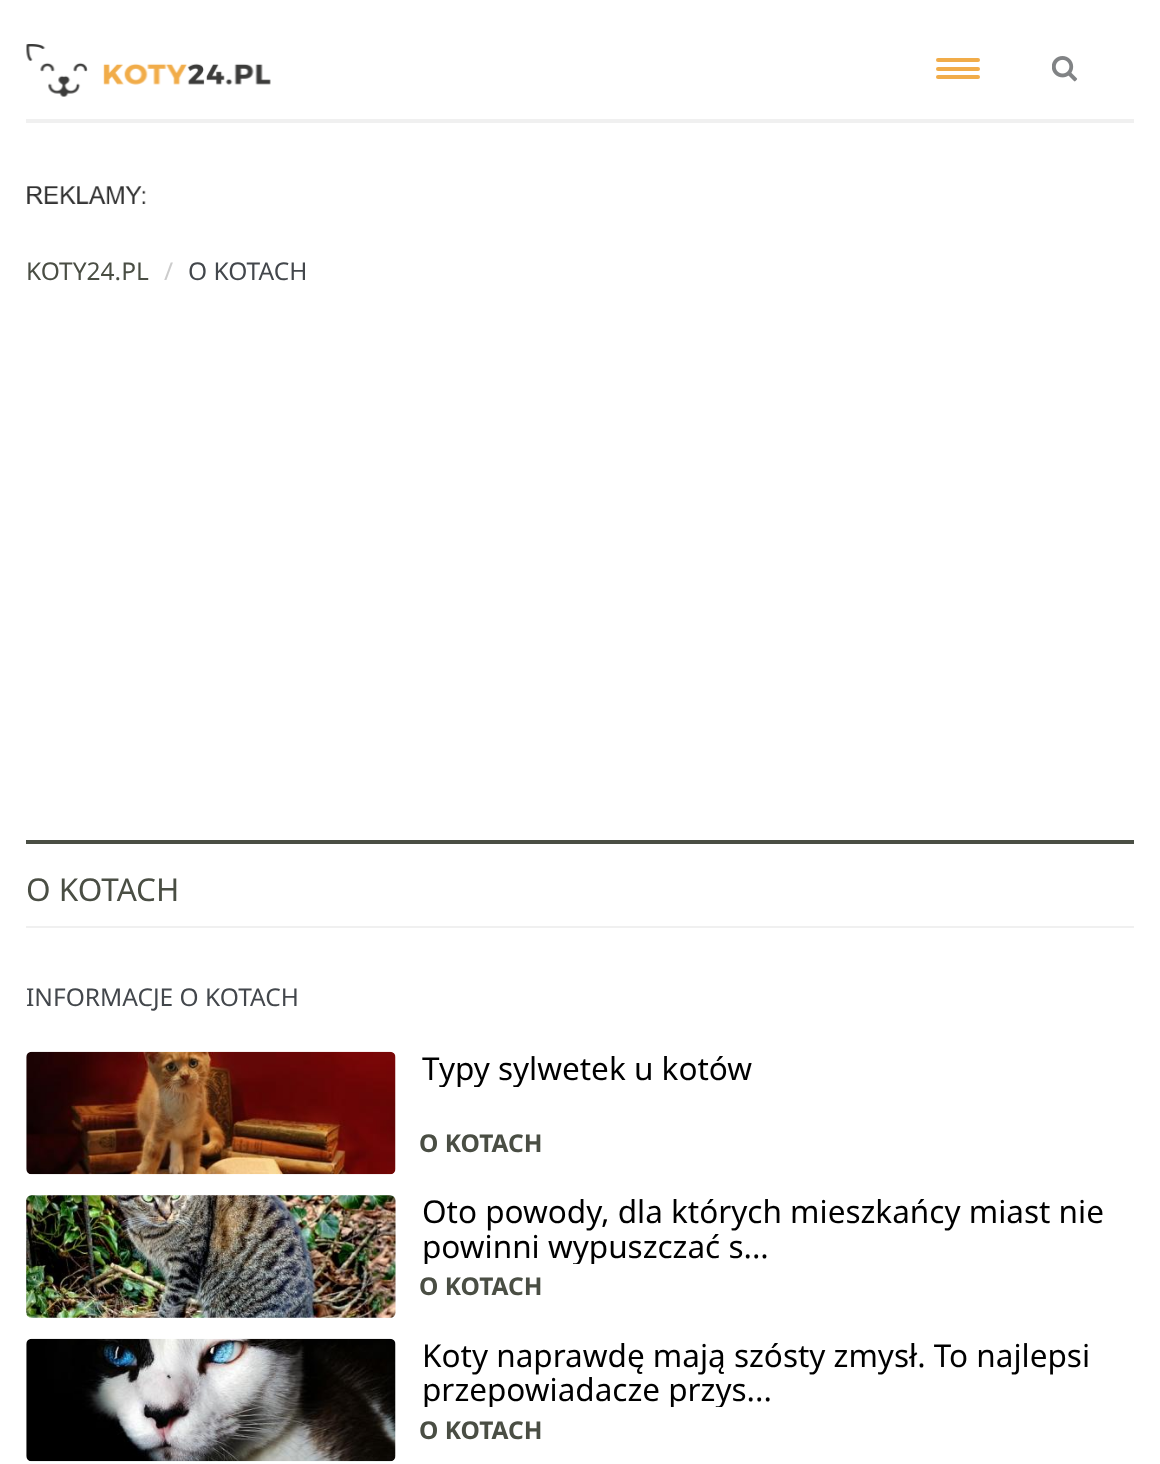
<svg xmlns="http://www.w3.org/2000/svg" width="1160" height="1464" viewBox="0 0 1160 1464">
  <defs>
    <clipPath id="clip1"><path d="M396 1052h738v35H396z"/></clipPath>
    <clipPath id="clip2"><path d="M396 1195h738v69H396z"/></clipPath>
    <clipPath id="clip3"><path d="M396 1339h738v68H396z"/></clipPath>
  </defs>
  <rect width="100%" height="100%" fill="#fff"/>
  <image x="26" y="44" width="245" height="53" href="img/1.png"/>
  <rect x="936" y="58" width="44" height="4" rx="2" fill="#f1ac49"/>
  <rect x="936" y="67" width="44" height="4" rx="2" fill="#f1ac49"/>
  <rect x="936" y="75" width="44" height="4" rx="2" fill="#f1ac49"/>
  <image x="1052" y="56" width="26" height="26" href="img/2.png"/>
  <path d="M26 119h1108v4H26z" fill="#f0f0f0"/>
  <image x="27" y="186" width="119" height="18" href="img/3.png"/>
  <path d="M26 840h1108v4H26z" fill="#4a4e44"/>
  <path d="M26 926h1108v2H26z" fill="#f0f0f0"/>
  <image x="26" y="1051" width="370" height="124" href="img/4.png"/>
  <image x="26" y="1195" width="370" height="123" href="img/5.png"/>
  <image x="26" y="1338" width="370" height="124" href="img/6.png"/>
  <text x="26" y="280" font-family="Noto Sans" font-size="24.5" fill="#4a4e44">KOTY24.PL</text>
  <text x="164" y="280" font-family="Noto Sans" font-size="24.5" fill="#ccc">/</text>
  <text x="188" y="280" font-family="Noto Sans" font-size="24.5" fill="#43474c">O KOTACH</text>
  <text x="26" y="901" font-family="Noto Sans" font-size="31.5" fill="#4a4e44">O KOTACH</text>
  <text x="26" y="1006" font-family="Noto Sans" font-size="24.5" fill="#43474c">INFORMACJE O KOTACH</text>
  <g clip-path="url(#clip1)">
    <text x="422" y="1080" font-family="Noto Sans" font-size="31.5" fill="#000">Typy sylwetek u kotów</text>
  </g>
  <text x="419" y="1152" font-family="Noto Sans" font-size="24.5" font-weight="bold" fill="#4a4e44">O KOTACH</text>
  <text x="422" y="1223" font-family="Noto Sans" font-size="31.5" fill="#000">Oto powody, dla których mieszkańcy miast nie</text>
  <g clip-path="url(#clip2)">
    <text x="422" y="1258" font-family="Noto Sans" font-size="31.5" fill="#000">powinni wypuszczać s...</text>
  </g>
  <text x="419" y="1295" font-family="Noto Sans" font-size="24.5" font-weight="bold" fill="#4a4e44">O KOTACH</text>
  <text x="422" y="1367" font-family="Noto Sans" font-size="31.5" fill="#000">Koty naprawdę mają szósty zmysł. To najlepsi</text>
  <g clip-path="url(#clip3)">
    <text x="422" y="1401" font-family="Noto Sans" font-size="31.5" fill="#000">przepowiadacze przys...</text>
  </g>
  <text x="419" y="1439" font-family="Noto Sans" font-size="24.5" font-weight="bold" fill="#4a4e44">O KOTACH</text>
</svg>
